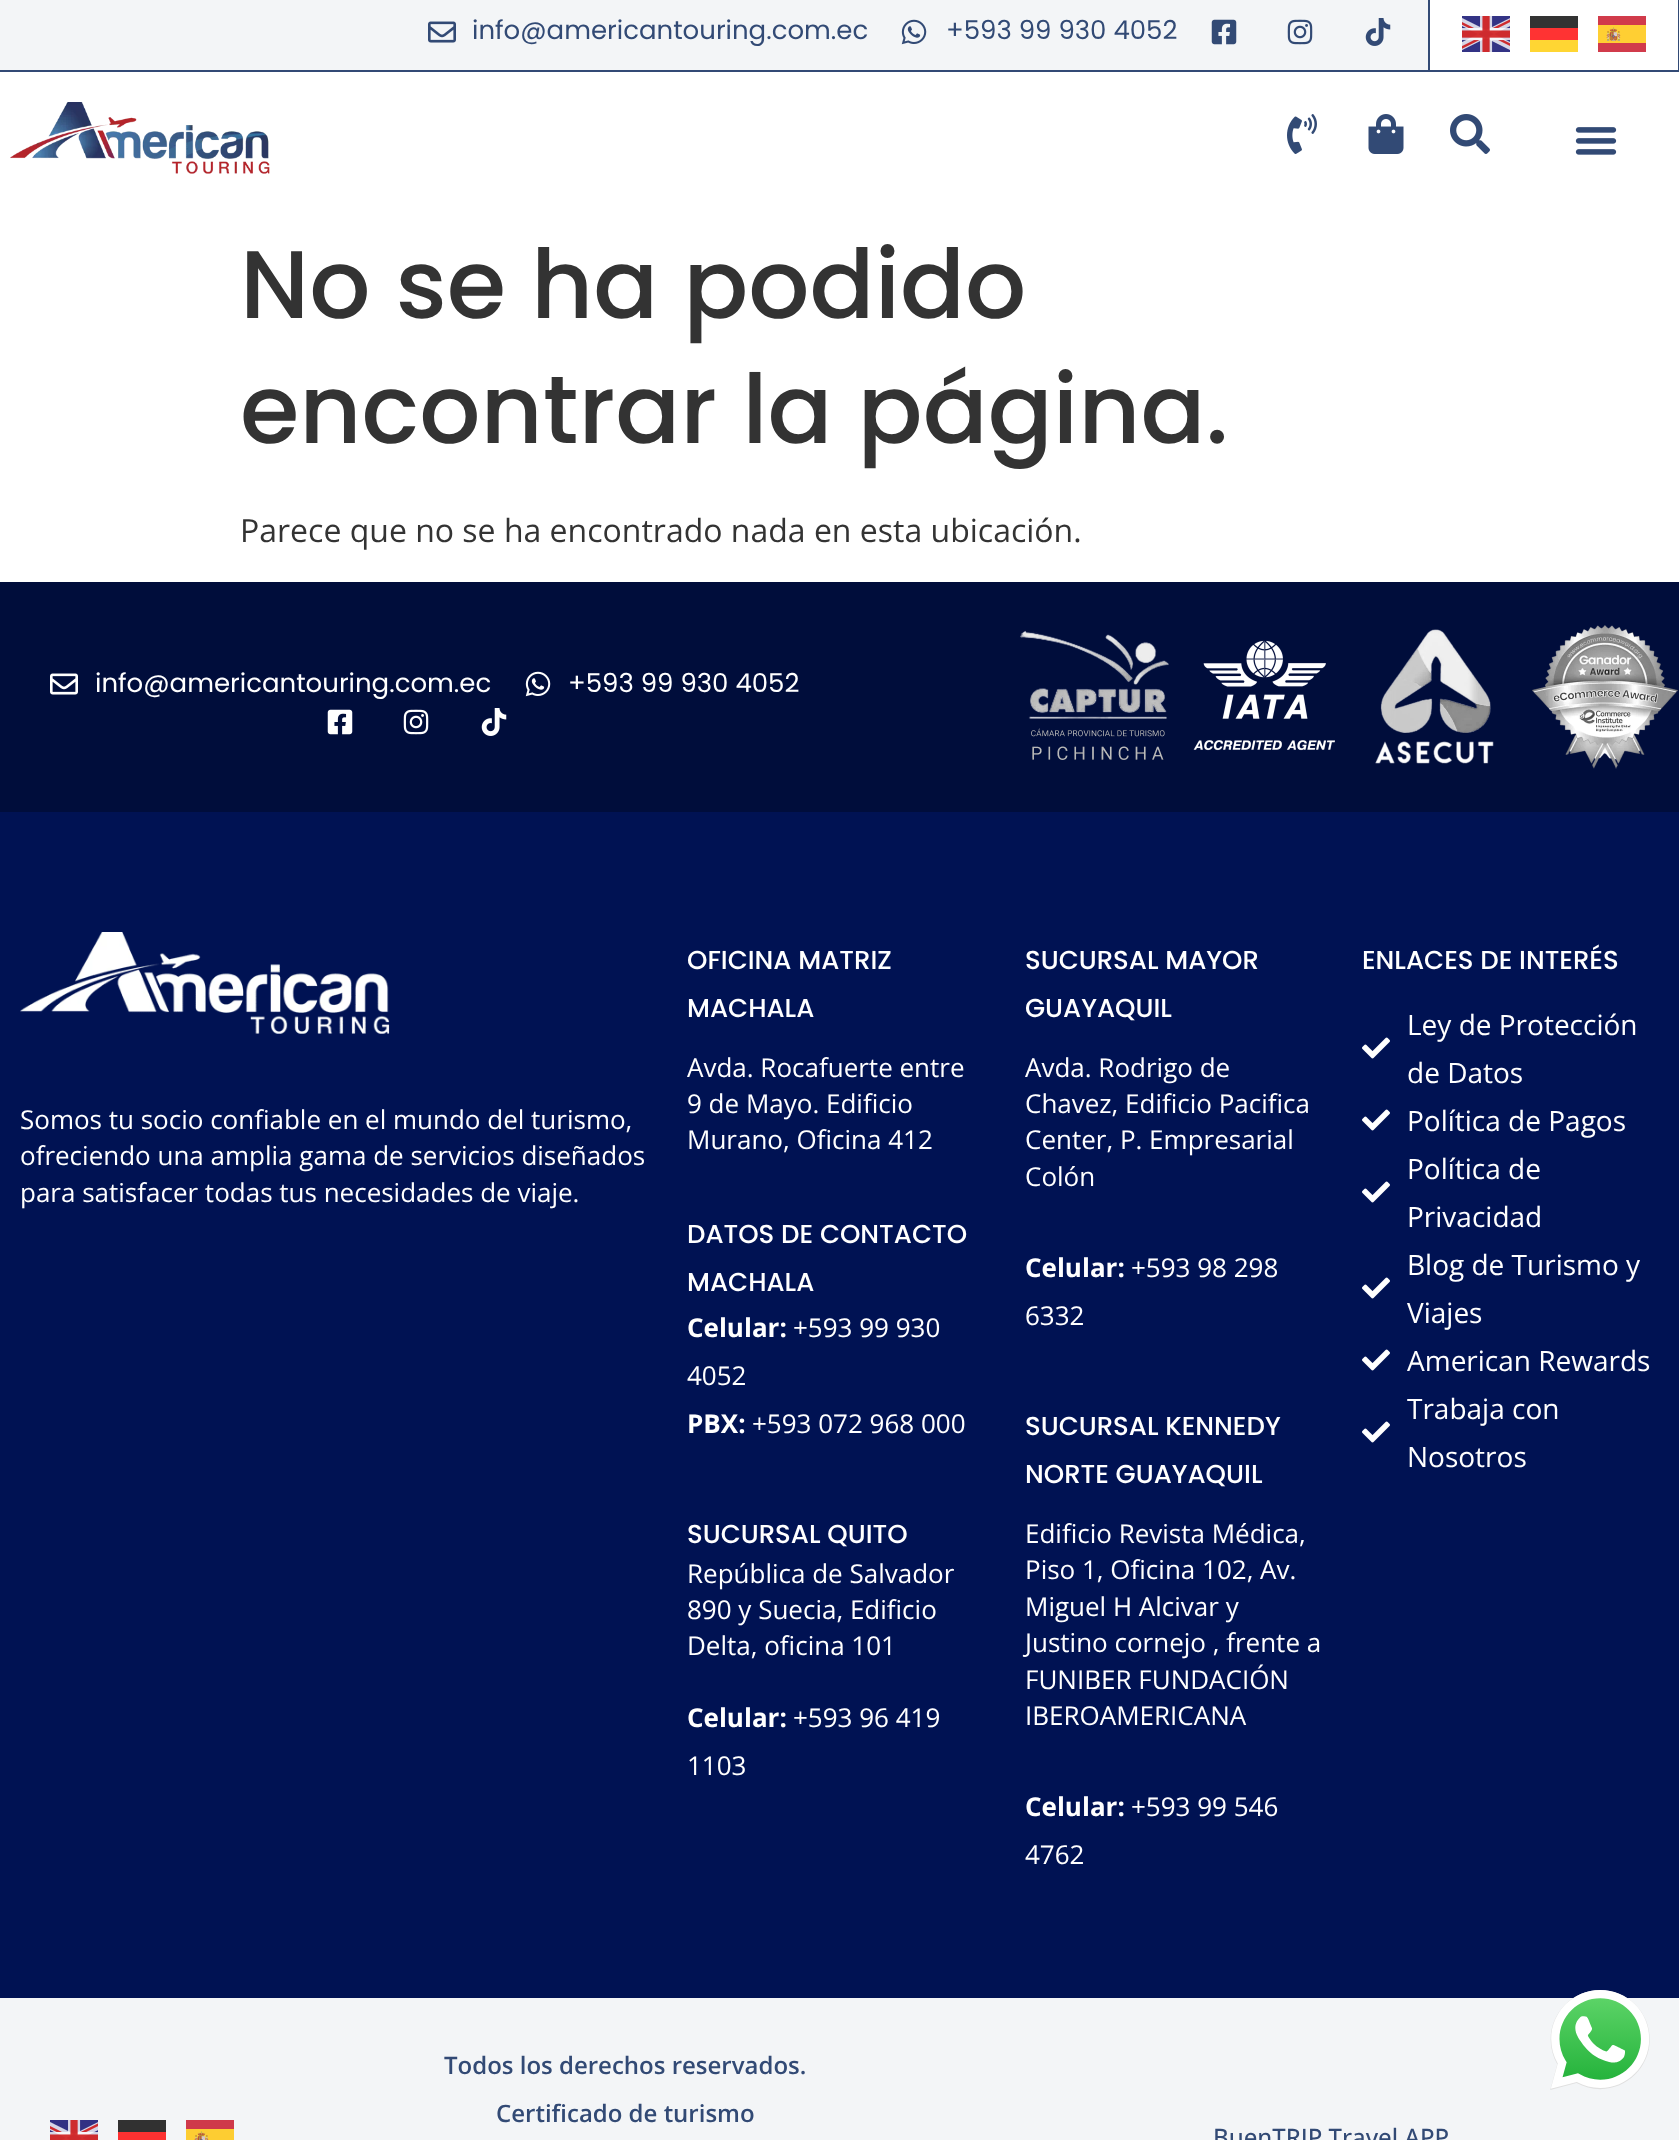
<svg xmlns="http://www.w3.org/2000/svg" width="1679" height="2140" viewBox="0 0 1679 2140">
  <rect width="100%" height="100%" fill="#fff"/>
  <path d="M0 0h1428v70H0z" fill="#f3f5f7"/>
  <path d="M0 70h1679v2H0z" fill="#324a75"/>
  <image x="428" y="21" width="28" height="22" href="img/1.png"/>
  <image x="901" y="19" width="26" height="26" href="img/2.png"/>
  <image x="1211" y="19" width="26" height="26" href="img/3.png"/>
  <image x="1287" y="19" width="26" height="26" href="img/4.png"/>
  <image x="1365" y="18" width="26" height="28" href="img/5.png"/>
  <path d="M1678 0h1v70H1678z" fill="#324a75"/>
  <path d="M1428 0h2v70H1428z" fill="#324a75"/>
  <image x="1462" y="16" width="48" height="36" href="img/6.png"/>
  <path d="M1530 16h48v12H1530z" fill="#333"/>
  <image x="1598" y="16" width="48" height="36" href="img/7.png"/>
  <path d="M1530 28h48v12H1530z" fill="#f33"/>
  <path d="M1530 40h48v12H1530z" fill="#ffd633"/>
  <image x="10" y="102" width="260" height="72" href="img/8.png"/>
  <image x="1287" y="114" width="30" height="40" href="img/9.png"/>
  <image x="1368" y="114" width="36" height="40" href="img/10.png"/>
  <image x="1450" y="114" width="40" height="40" href="img/11.png"/>
  <image x="1575" y="127" width="42" height="28" href="img/12.png"/>
  <path d="M0 582h1679v230H0z" fill="#000d3b"/>
  <image x="50" y="673" width="28" height="22" href="img/13.png"/>
  <image x="525" y="671" width="26" height="26" href="img/14.png"/>
  <image x="327" y="709" width="26" height="26" href="img/15.png"/>
  <image x="403" y="709" width="26" height="26" href="img/16.png"/>
  <image x="481" y="708" width="26" height="28" href="img/17.png"/>
  <image x="1020" y="630" width="149" height="130" href="img/18.png"/>
  <image x="1193" y="640" width="142" height="111" href="img/19.png"/>
  <image x="1375" y="629" width="119" height="135" href="img/20.png"/>
  <image x="1532" y="625" width="146" height="144" href="img/21.png"/>
  <path d="M0 812h1679v1186H0z" fill="#001253"/>
  <image x="20" y="932" width="370" height="102" href="img/22.png"/>
  <image x="1362" y="1037" width="28" height="22" href="img/23.png"/>
  <image x="1362" y="1109" width="28" height="22" href="img/23.png"/>
  <image x="1362" y="1181" width="28" height="22" href="img/23.png"/>
  <image x="1362" y="1277" width="28" height="22" href="img/23.png"/>
  <image x="1362" y="1349" width="28" height="22" href="img/23.png"/>
  <image x="1362" y="1421" width="28" height="22" href="img/23.png"/>
  <path d="M0 1998h1679v142H0z" fill="#f3f5f7"/>
  <image x="50" y="2120" width="48" height="20" href="img/24.png"/>
  <path d="M118 2120h48v12H118z" fill="#313131"/>
  <image x="186" y="2120" width="48" height="20" href="img/25.png"/>
  <path d="M118 2132h48v8H118z" fill="#fd3131"/>
  <image x="1550" y="1990" width="100" height="100" href="img/26.png"/>
  <g font-family="Poppins" font-size="26" fill="#324a75">
    <text x="472" y="39">info@americantouring.com.ec</text>
    <text x="946" y="39">+593 99 930 4052</text>
  </g>
  <g font-family="Poppins" font-size="96" font-weight="500" fill="#333">
    <text x="240" y="318">No se ha podido</text>
    <text x="240" y="443">encontrar la página.</text>
  </g>
  <text x="240" y="542" font-family="Open Sans" font-size="32" fill="#333">Parece que no se ha encontrado nada en esta ubicación.</text>
  <g font-family="Poppins" font-size="26" fill="#fff">
    <text x="95" y="692">info@americantouring.com.ec</text>
    <text x="568" y="692">+593 99 930 4052</text>
  </g>
  <g font-family="Open Sans" font-size="26" fill="#fff">
    <text x="20" y="1129">Somos tu socio confiable en el mundo del turismo,</text>
    <text x="20" y="1165">ofreciendo una amplia gama de servicios diseñados</text>
    <text x="20" y="1202">para satisfacer todas tus necesidades de viaje.</text>
  </g>
  <g font-family="Poppins" font-size="26" font-weight="500" fill="#fff">
    <text x="687" y="969">OFICINA MATRIZ</text>
    <text x="687" y="1017">MACHALA</text>
  </g>
  <g font-family="Open Sans" font-size="26" fill="#fff">
    <text x="687" y="1077">Avda. Rocafuerte entre</text>
    <text x="687" y="1113">9 de Mayo. Edificio</text>
    <text x="687" y="1149">Murano, Oficina 412</text>
  </g>
  <g font-family="Poppins" font-size="26" font-weight="500" fill="#fff">
    <text x="687" y="1243">DATOS DE CONTACTO</text>
    <text x="687" y="1291">MACHALA</text>
  </g>
  <text x="687" y="1337" font-family="Open Sans" font-size="26" font-weight="bold" fill="#fff">Celular:</text>
  <g font-family="Open Sans" font-size="26" fill="#fff">
    <text x="793" y="1337">+593 99 930</text>
    <text x="687" y="1385">4052</text>
  </g>
  <text x="687" y="1433" font-family="Open Sans" font-size="26" font-weight="bold" fill="#fff">PBX:</text>
  <text x="752" y="1433" font-family="Open Sans" font-size="26" fill="#fff">+593 072 968 000</text>
  <text x="687" y="1543" font-family="Poppins" font-size="26" font-weight="500" fill="#fff">SUCURSAL QUITO</text>
  <g font-family="Open Sans" font-size="26" fill="#fff">
    <text x="687" y="1583">República de Salvador</text>
    <text x="687" y="1619">890 y Suecia, Edificio</text>
    <text x="687" y="1655">Delta, oficina 101</text>
  </g>
  <text x="687" y="1727" font-family="Open Sans" font-size="26" font-weight="bold" fill="#fff">Celular:</text>
  <g font-family="Open Sans" font-size="26" fill="#fff">
    <text x="793" y="1727">+593 96 419</text>
    <text x="687" y="1775">1103</text>
  </g>
  <g font-family="Poppins" font-size="26" font-weight="500" fill="#fff">
    <text x="1025" y="969">SUCURSAL MAYOR</text>
    <text x="1025" y="1017">GUAYAQUIL</text>
  </g>
  <g font-family="Open Sans" font-size="26" fill="#fff">
    <text x="1025" y="1077">Avda. Rodrigo de</text>
    <text x="1025" y="1113">Chavez, Edificio Pacifica</text>
    <text x="1025" y="1149">Center, P. Empresarial</text>
    <text x="1025" y="1186">Colón</text>
  </g>
  <text x="1025" y="1277" font-family="Open Sans" font-size="26" font-weight="bold" fill="#fff">Celular:</text>
  <g font-family="Open Sans" font-size="26" fill="#fff">
    <text x="1131" y="1277">+593 98 298</text>
    <text x="1025" y="1325">6332</text>
  </g>
  <g font-family="Poppins" font-size="26" font-weight="500" fill="#fff">
    <text x="1025" y="1435">SUCURSAL KENNEDY</text>
    <text x="1025" y="1483">NORTE GUAYAQUIL</text>
  </g>
  <g font-family="Open Sans" font-size="26" fill="#fff">
    <text x="1025" y="1543">Edificio Revista Médica,</text>
    <text x="1025" y="1579">Piso 1, Oficina 102, Av.</text>
    <text x="1025" y="1616">Miguel H Alcivar y</text>
    <text x="1025" y="1652">Justino cornejo , frente a</text>
    <text x="1025" y="1689">FUNIBER FUNDACIÓN</text>
    <text x="1025" y="1725">IBEROAMERICANA</text>
  </g>
  <text x="1025" y="1816" font-family="Open Sans" font-size="26" font-weight="bold" fill="#fff">Celular:</text>
  <g font-family="Open Sans" font-size="26" fill="#fff">
    <text x="1131" y="1816">+593 99 546</text>
    <text x="1025" y="1864">4762</text>
  </g>
  <text x="1362" y="969" font-family="Poppins" font-size="26" font-weight="500" fill="#fff">ENLACES DE INTERÉS</text>
  <g font-family="Open Sans" font-size="28" fill="#fff">
    <text x="1407" y="1035">Ley de Protección</text>
    <text x="1407" y="1083">de Datos</text>
    <text x="1407" y="1131">Política de Pagos</text>
    <text x="1407" y="1179">Política de</text>
    <text x="1407" y="1227">Privacidad</text>
    <text x="1407" y="1275">Blog de Turismo y</text>
    <text x="1407" y="1323">Viajes</text>
    <text x="1407" y="1371">American Rewards</text>
    <text x="1407" y="1419">Trabaja con</text>
    <text x="1407" y="1467">Nosotros</text>
  </g>
  <g font-family="Open Sans" font-size="24" font-weight="600" fill="#324a75">
    <text x="444" y="2074">Todos los derechos reservados.</text>
    <text x="496" y="2122">Certificado de turismo</text>
  </g>
  <text x="1213" y="2146" font-family="Open Sans" font-size="24" font-weight="500" fill="#324a75">BuenTRIP Travel APP</text>
</svg>
